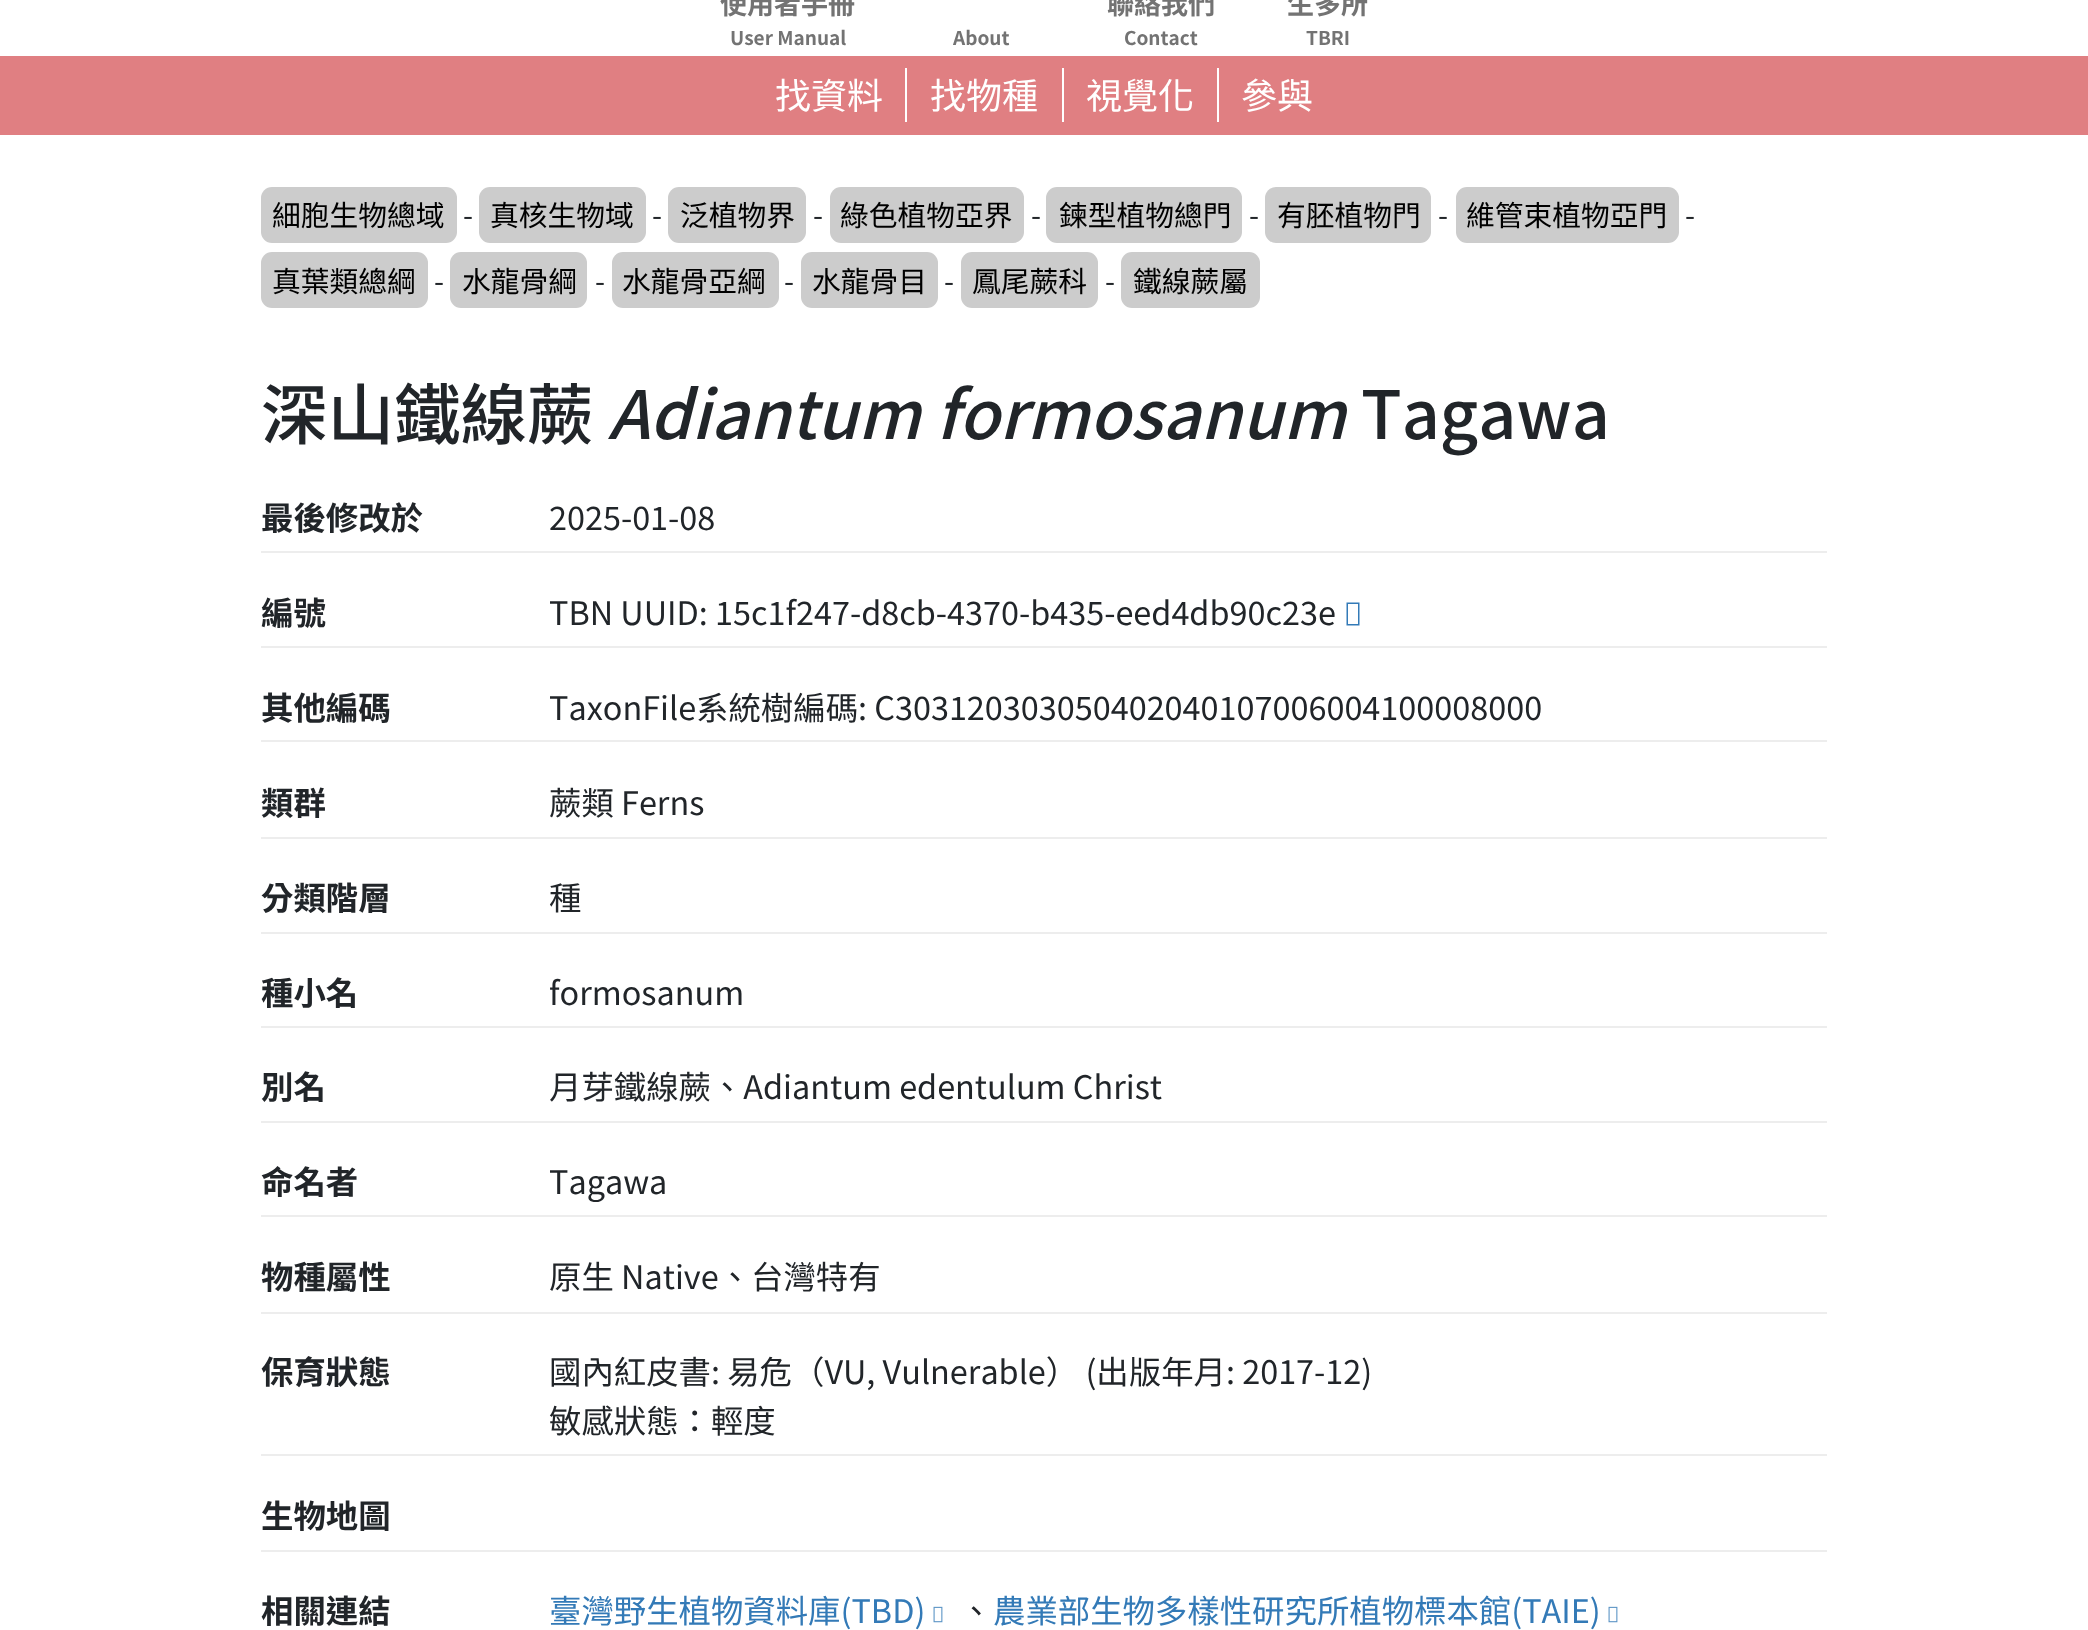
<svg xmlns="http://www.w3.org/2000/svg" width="2088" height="1630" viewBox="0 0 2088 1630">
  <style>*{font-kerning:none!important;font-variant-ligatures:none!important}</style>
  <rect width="100%" height="100%" fill="#fff"/>
  <path d="M0 56h2088v79H0z" fill="#e07f82"/>
  <path d="M905 68h2v54H905z" fill="#fff"/>
  <path d="M1062 68h2v54H1062z" fill="#fff"/>
  <path d="M1217 68h2v54H1217z" fill="#fff"/>
  <rect x="261" y="187" width="196" height="56" rx="11" fill="#ccc"/>
  <rect x="479" y="187" width="167" height="56" rx="11" fill="#ccc"/>
  <rect x="668" y="187" width="138" height="56" rx="11" fill="#ccc"/>
  <rect x="830" y="187" width="194" height="56" rx="11" fill="#ccc"/>
  <rect x="1046" y="187" width="196" height="56" rx="11" fill="#ccc"/>
  <rect x="1265" y="187" width="166" height="56" rx="11" fill="#ccc"/>
  <rect x="1456" y="187" width="223" height="56" rx="11" fill="#ccc"/>
  <rect x="261" y="252" width="167" height="56" rx="11" fill="#ccc"/>
  <rect x="450" y="252" width="137" height="56" rx="11" fill="#ccc"/>
  <rect x="612" y="252" width="167" height="56" rx="11" fill="#ccc"/>
  <rect x="801" y="252" width="137" height="56" rx="11" fill="#ccc"/>
  <rect x="961" y="252" width="137" height="56" rx="11" fill="#ccc"/>
  <rect x="1121" y="252" width="139" height="56" rx="11" fill="#ccc"/>
  <path d="M261 551h1566v2H261z" fill="#ededed"/>
  <path d="M261 646h1566v2H261z" fill="#ededed"/>
  <path d="M1346.5 625.5V602.5H1359.5V625.5ZM1348 624H1358V604H1348Z" fill="#337ab7"/>
  <path d="M261 740h1566v2H261z" fill="#ededed"/>
  <path d="M261 837h1566v2H261z" fill="#ededed"/>
  <path d="M261 932h1566v2H261z" fill="#ededed"/>
  <path d="M261 1026h1566v2H261z" fill="#ededed"/>
  <path d="M261 1121h1566v2H261z" fill="#ededed"/>
  <path d="M261 1215h1566v2H261z" fill="#ededed"/>
  <path d="M261 1312h1566v2H261z" fill="#ededed"/>
  <path d="M261 1454h1566v2H261z" fill="#ededed"/>
  <path d="M261 1550h1566v2H261z" fill="#ededed"/>
  <image x="933" y="1606" width="10" height="17" href="img/1.png"/>
  <image x="1608" y="1606" width="10" height="17" href="img/1.png"/>
  <text x="720" y="14" font-family="Noto Sans TC" font-size="27" font-weight="bold" fill="#737373">使用者手冊</text>
  <g font-family="Noto Sans TC" font-size="19" font-weight="bold" fill="#737373">
    <text x="730" y="45">User Manual</text>
    <text x="953" y="45">About</text>
  </g>
  <text x="1107" y="14" font-family="Noto Sans TC" font-size="27" font-weight="bold" fill="#737373">聯絡我們</text>
  <text x="1124" y="45" font-family="Noto Sans TC" font-size="19" font-weight="bold" fill="#737373">Contact</text>
  <text x="1287" y="14" font-family="Noto Sans TC" font-size="27" font-weight="bold" fill="#737373">生多所</text>
  <text x="1306" y="45" font-family="Noto Sans TC" font-size="19" font-weight="bold" fill="#737373">TBRI</text>
  <g font-family="Noto Sans TC" font-size="36" fill="#fff">
    <text x="775" y="109">找資料</text>
    <text x="930" y="109">找物種</text>
    <text x="1086" y="109">視覺化</text>
    <text x="1241" y="109">參與</text>
  </g>
  <text x="272" y="226" font-family="Noto Sans TC" font-size="28.75" fill="#000">細胞生物總域</text>
  <text x="463" y="226" font-family="Noto Sans TC" font-size="28.75" fill="#212529">-</text>
  <text x="490" y="226" font-family="Noto Sans TC" font-size="28.75" fill="#000">真核生物域</text>
  <text x="652" y="226" font-family="Noto Sans TC" font-size="28.75" fill="#212529">-</text>
  <text x="680" y="226" font-family="Noto Sans TC" font-size="28.75" fill="#000">泛植物界</text>
  <text x="813" y="226" font-family="Noto Sans TC" font-size="28.75" fill="#212529">-</text>
  <text x="840" y="226" font-family="Noto Sans TC" font-size="28.75" fill="#000">綠色植物亞界</text>
  <text x="1031" y="226" font-family="Noto Sans TC" font-size="28.75" fill="#212529">-</text>
  <text x="1059" y="226" font-family="Noto Sans TC" font-size="28.75" fill="#000">鍊型植物總門</text>
  <text x="1249" y="226" font-family="Noto Sans TC" font-size="28.75" fill="#212529">-</text>
  <text x="1277" y="226" font-family="Noto Sans TC" font-size="28.75" fill="#000">有胚植物門</text>
  <text x="1438" y="226" font-family="Noto Sans TC" font-size="28.75" fill="#212529">-</text>
  <text x="1466" y="226" font-family="Noto Sans TC" font-size="28.75" fill="#000">維管束植物亞門</text>
  <text x="1685" y="226" font-family="Noto Sans TC" font-size="28.75" fill="#212529">-</text>
  <text x="272" y="292" font-family="Noto Sans TC" font-size="28.75" fill="#000">真葉類總綱</text>
  <text x="434" y="292" font-family="Noto Sans TC" font-size="28.75" fill="#212529">-</text>
  <text x="462" y="292" font-family="Noto Sans TC" font-size="28.75" fill="#000">水龍骨綱</text>
  <text x="595" y="292" font-family="Noto Sans TC" font-size="28.75" fill="#212529">-</text>
  <text x="622" y="292" font-family="Noto Sans TC" font-size="28.75" fill="#000">水龍骨亞綱</text>
  <text x="784" y="292" font-family="Noto Sans TC" font-size="28.75" fill="#212529">-</text>
  <text x="812" y="292" font-family="Noto Sans TC" font-size="28.75" fill="#000">水龍骨目</text>
  <text x="944" y="292" font-family="Noto Sans TC" font-size="28.75" fill="#212529">-</text>
  <text x="972" y="292" font-family="Noto Sans TC" font-size="28.75" fill="#000">鳳尾蕨科</text>
  <text x="1105" y="292" font-family="Noto Sans TC" font-size="28.75" fill="#212529">-</text>
  <text x="1133" y="292" font-family="Noto Sans TC" font-size="28.75" fill="#000">鐵線蕨屬</text>
  <text x="261" y="439" font-family="Noto Sans TC" font-size="66.5" font-weight="500" fill="#212529">深山鐵線蕨</text>
  <text x="608" y="439" font-family="Noto Sans TC" font-size="66.5" font-weight="500" font-style="italic" fill="#212529">Adiantum formosanum</text>
  <text x="1361" y="439" font-family="Noto Sans TC" font-size="66.5" font-weight="500" fill="#212529">Tagawa</text>
  <text x="261" y="530" font-family="Noto Sans TC" font-size="32.4" font-weight="bold" fill="#212529">最後修改於</text>
  <text x="549" y="530" font-family="Noto Sans TC" font-size="32.4" fill="#212529">2025-01-08</text>
  <text x="261" y="625" font-family="Noto Sans TC" font-size="32.4" font-weight="bold" fill="#212529">編號</text>
  <text x="549" y="625" font-family="Noto Sans TC" font-size="32.4" fill="#212529">TBN UUID: 15c1f247-d8cb-4370-b435-eed4db90c23e</text>
  <text x="261" y="720" font-family="Noto Sans TC" font-size="32.4" font-weight="bold" fill="#212529">其他編碼</text>
  <text x="549" y="720" font-family="Noto Sans TC" font-size="32.4" fill="#212529">TaxonFile系統樹編碼: C303120303050402040107006004100008000</text>
  <text x="261" y="815" font-family="Noto Sans TC" font-size="32.4" font-weight="bold" fill="#212529">類群</text>
  <text x="549" y="815" font-family="Noto Sans TC" font-size="32.4" fill="#212529">蕨類 Ferns</text>
  <text x="261" y="910" font-family="Noto Sans TC" font-size="32.4" font-weight="bold" fill="#212529">分類階層</text>
  <text x="549" y="910" font-family="Noto Sans TC" font-size="32.4" fill="#212529">種</text>
  <text x="261" y="1005" font-family="Noto Sans TC" font-size="32.4" font-weight="bold" fill="#212529">種小名</text>
  <text x="549" y="1005" font-family="Noto Sans TC" font-size="32.4" fill="#212529">formosanum</text>
  <text x="261" y="1099" font-family="Noto Sans TC" font-size="32.4" font-weight="bold" fill="#212529">別名</text>
  <text x="549" y="1099" font-family="Noto Sans TC" font-size="32.4" fill="#212529">月芽鐵線蕨、Adiantum edentulum Christ</text>
  <text x="261" y="1194" font-family="Noto Sans TC" font-size="32.4" font-weight="bold" fill="#212529">命名者</text>
  <text x="549" y="1194" font-family="Noto Sans TC" font-size="32.4" fill="#212529">Tagawa</text>
  <text x="261" y="1289" font-family="Noto Sans TC" font-size="32.4" font-weight="bold" fill="#212529">物種屬性</text>
  <text x="549" y="1289" font-family="Noto Sans TC" font-size="32.4" fill="#212529">原生 Native、台灣特有</text>
  <text x="261" y="1384" font-family="Noto Sans TC" font-size="32.4" font-weight="bold" fill="#212529">保育狀態</text>
  <g font-family="Noto Sans TC" font-size="32.4" fill="#212529">
    <text x="549" y="1384">國內紅皮書: 易危（VU, Vulnerable） (出版年月: 2017-12)</text>
    <text x="549" y="1433">敏感狀態：輕度</text>
  </g>
  <g font-family="Noto Sans TC" font-size="32.4" font-weight="bold" fill="#212529">
    <text x="261" y="1528">生物地圖</text>
    <text x="261" y="1623">相關連結</text>
  </g>
  <text x="549" y="1623" font-family="Noto Sans TC" font-size="32.4" fill="#337ab7">臺灣野生植物資料庫(TBD)</text>
  <text x="960" y="1623" font-family="Noto Sans TC" font-size="32.4" fill="#212529">、</text>
  <text x="993" y="1623" font-family="Noto Sans TC" font-size="32.4" fill="#337ab7">農業部生物多樣性研究所植物標本館(TAIE)</text>
</svg>
